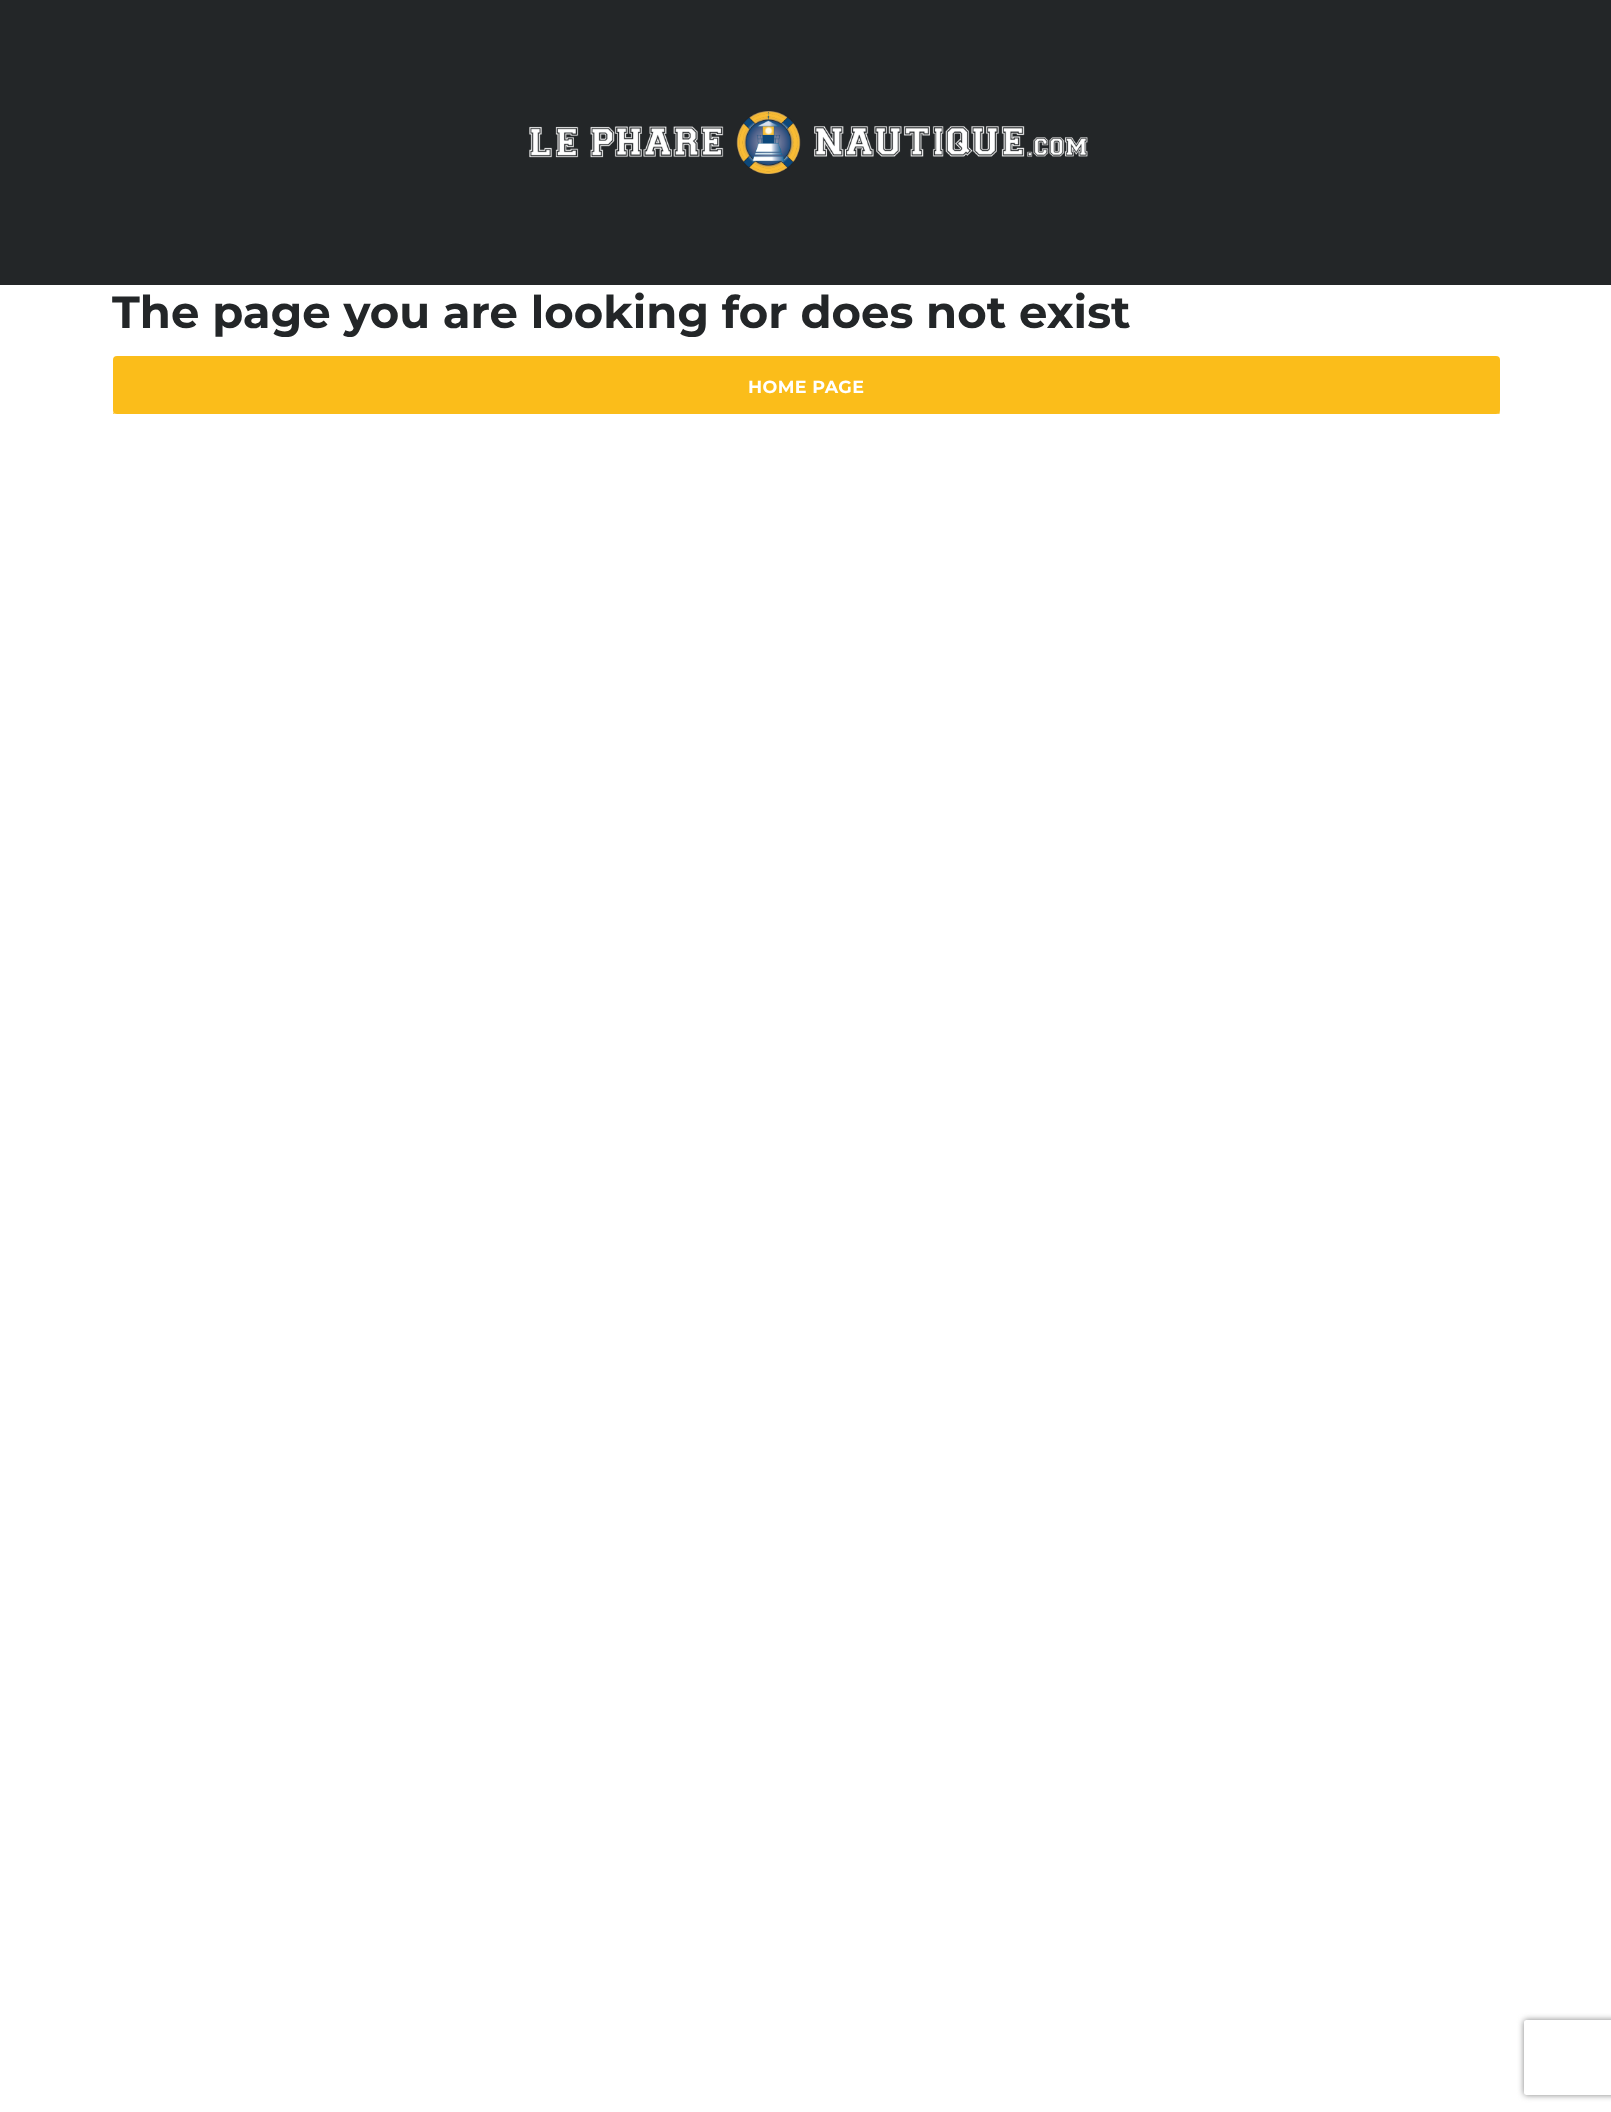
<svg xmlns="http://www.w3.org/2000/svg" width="1611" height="2112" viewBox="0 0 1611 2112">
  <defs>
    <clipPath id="clip1"><path d="M0 0h1611v414H0z"/></clipPath>
    <clipPath id="clip2"><path d="M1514 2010H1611V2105H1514ZM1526.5 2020H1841.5C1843 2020 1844 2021 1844 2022.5V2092.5C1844 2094 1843 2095 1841.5 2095H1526.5C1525 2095 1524 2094 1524 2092.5V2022.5C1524 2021 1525 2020 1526.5 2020Z" clip-rule="evenodd"/></clipPath>
  </defs>
  <rect width="100%" height="100%" fill="#fff"/>
  <path d="M0 0h1611v285H0z" fill="#232628"/>
  <image x="529" y="111" width="559" height="63" href="img/1.png"/>
  <g clip-path="url(#clip1)">
    <path d="M113 412V413C113 415 115 416 117 416H1496C1500 416 1500 413 1500 410C1500 412 1498 414 1496 414H116C115 414 114 413 113 412Z" fill="#fcce53"/>
  </g>
  <rect x="113" y="356" width="1387" height="58" rx="4" fill="#fbbd1a"/>
  <g clip-path="url(#clip2)">
    <rect x="1524" y="2020" width="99" height="75" rx="2.5" fill="#808080" filter="blur(3px)"/>
  </g>
  <text x="112" y="328" font-family="Montserrat" font-size="45" font-weight="bold" fill="#232628">The page you are looking for does not exist</text>
  <text x="748" y="393" font-family="Montserrat" font-size="17.5" font-weight="bold" letter-spacing="0.4" fill="#fff">HOME PAGE</text>
</svg>
